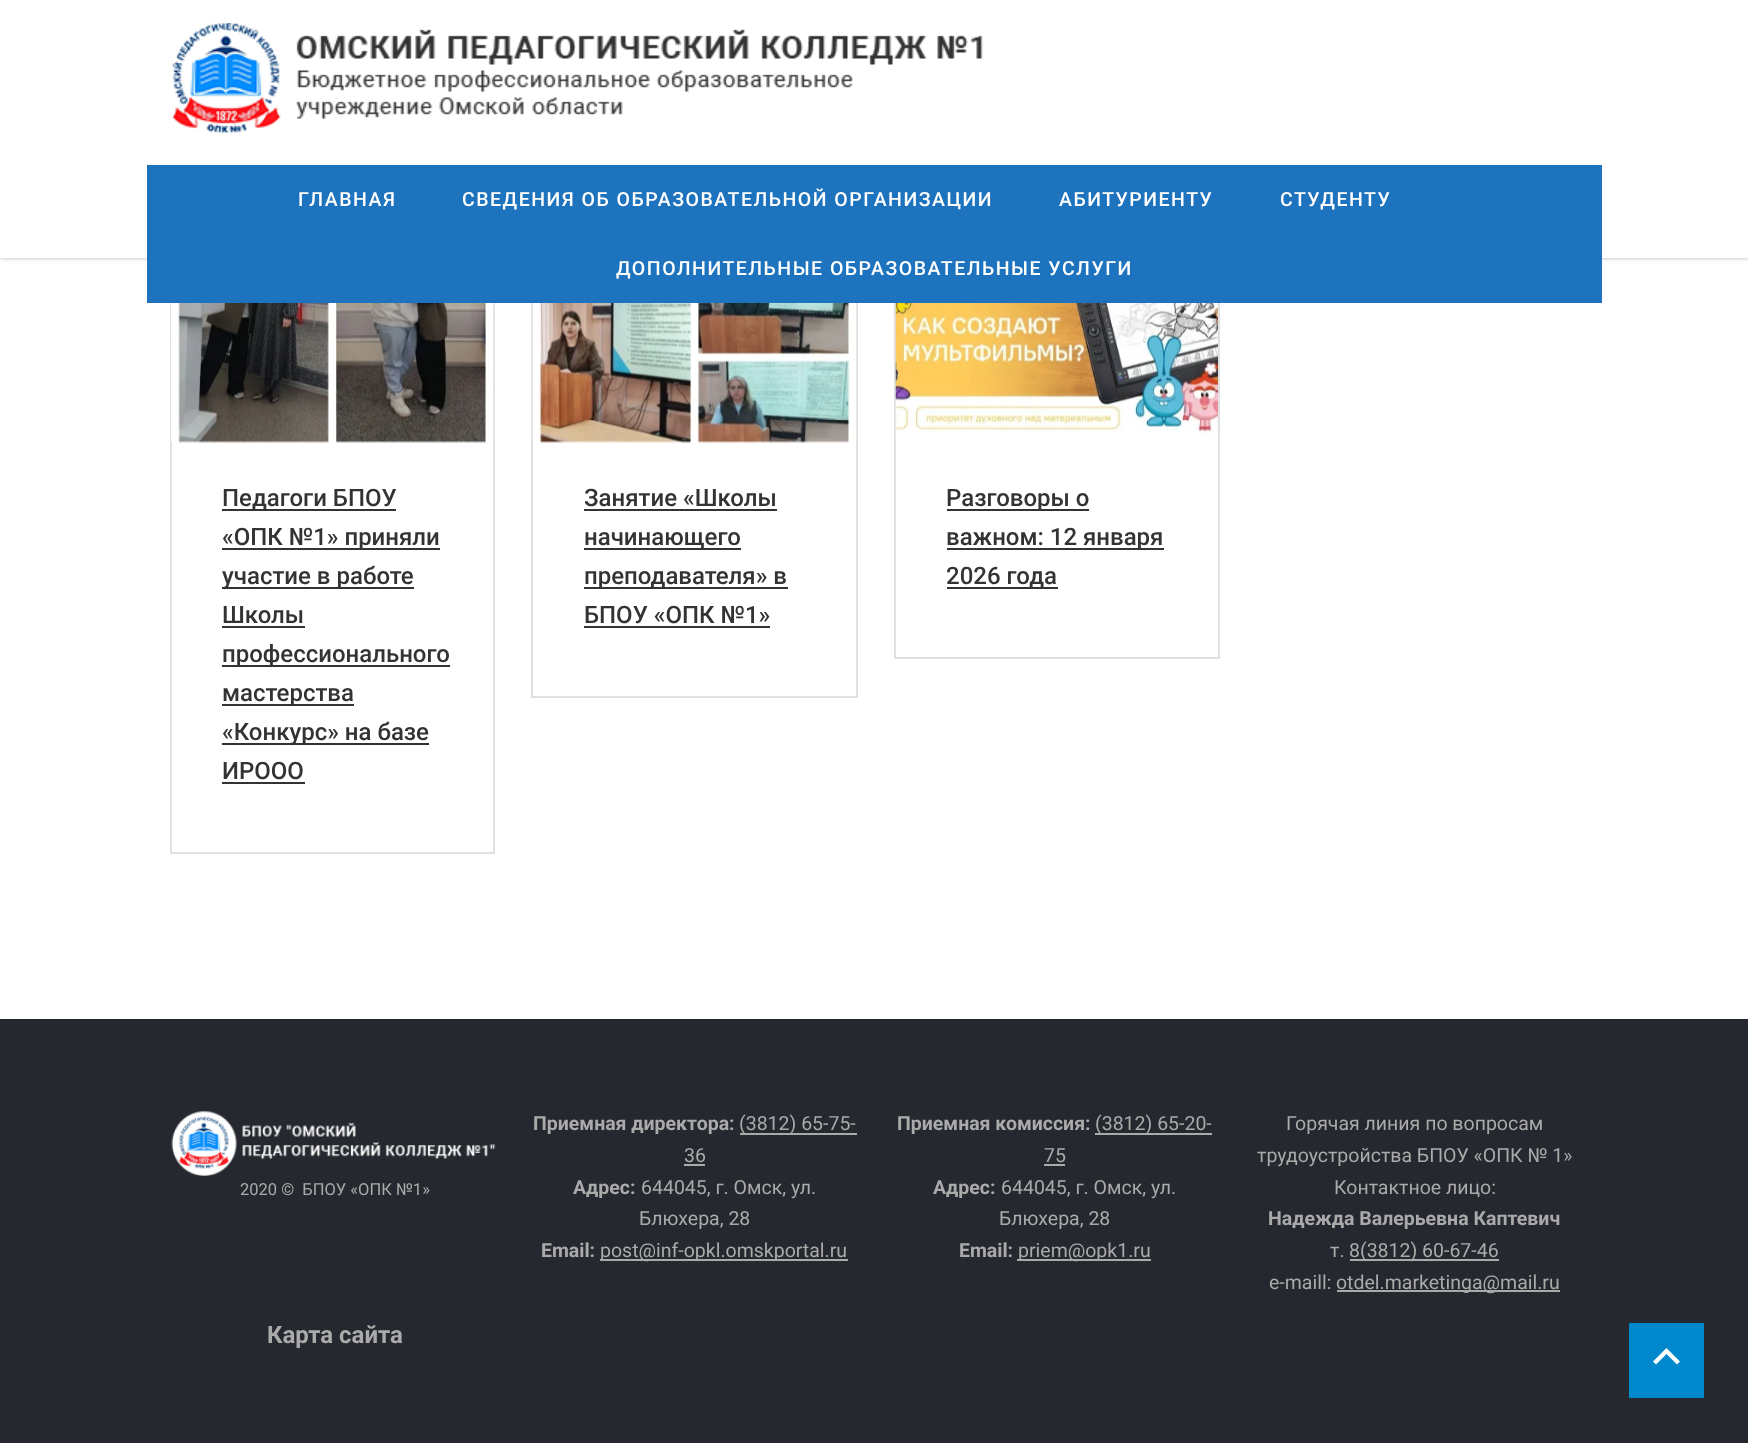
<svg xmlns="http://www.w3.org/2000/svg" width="1748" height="1443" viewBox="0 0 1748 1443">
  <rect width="100%" height="100%" fill="#fff"/>
  <path d="M171 165h323v688H171z" fill="none" stroke="#e0e0e0" stroke-width="2"/>
  <path d="M532 165h325v532H532z" fill="none" stroke="#e0e0e0" stroke-width="2"/>
  <path d="M895 165h324v493H895z" fill="none" stroke="#e0e0e0" stroke-width="2"/>
  <path d="M0 0h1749v258H0z" fill="#0000004d" filter="blur(2px)"/>
  <path d="M0 0h1748v258H0z" fill="#fff"/>
  <image x="172" y="23" width="811" height="111" href="img/1.png"/>
  <path d="M147 165h1455v138H147z" fill="#1e73be"/>
  <image x="171" y="303" width="323" height="140" href="img/2.png"/>
  <path d="M222 509h174v2H222z" fill="#333"/>
  <path d="M222 548h218v2H222z" fill="#333"/>
  <path d="M222 587h192v2H222z" fill="#333"/>
  <path d="M222 626h83v2H222z" fill="#333"/>
  <path d="M222 665h228v2H222z" fill="#333"/>
  <path d="M222 704h132v2H222z" fill="#333"/>
  <path d="M222 743h207v2H222z" fill="#333"/>
  <path d="M222 782h83v2H222z" fill="#333"/>
  <image x="532" y="303" width="325" height="140" href="img/3.png"/>
  <path d="M584 509h193v2H584z" fill="#333"/>
  <path d="M584 548h157v2H584z" fill="#333"/>
  <path d="M584 587h204v2H584z" fill="#333"/>
  <path d="M584 626h186v2H584z" fill="#333"/>
  <image x="895" y="303" width="323" height="139" href="img/4.png"/>
  <path d="M947 509h142v2H947z" fill="#333"/>
  <path d="M947 548h217v2H947z" fill="#333"/>
  <path d="M947 587h111v2H947z" fill="#333"/>
  <path d="M0 1019h1748v424H0z" fill="#25282e"/>
  <image x="171" y="1111" width="325" height="65" href="img/5.png"/>
  <path d="M740 1133h117v2H740z" fill="#aaa"/>
  <path d="M684 1164h21v2H684z" fill="#aaa"/>
  <path d="M600 1259h248v2H600z" fill="#aaa"/>
  <path d="M1095 1133h117v2H1095z" fill="#aaa"/>
  <path d="M1044 1164h21v2H1044z" fill="#aaa"/>
  <path d="M1017 1259h134v2H1017z" fill="#aaa"/>
  <path d="M1350 1259h149v2H1350z" fill="#aaa"/>
  <path d="M1337 1290h223v2H1337z" fill="#aaa"/>
  <path d="M1629 1323h75v75H1629z" fill="#08c"/>
  <path d="M1680 1361.5L1677 1364.5L1666.5 1354L1656 1364.5L1653 1361.5L1666.5 1348Z" fill="#fff"/>
  <g font-family="Roboto" font-size="19.5" font-weight="500" letter-spacing="1.5" fill="#fff">
    <text x="298" y="206">ГЛАВНАЯ</text>
    <text x="462" y="206">СВЕДЕНИЯ ОБ ОБРАЗОВАТЕЛЬНОЙ ОРГАНИЗАЦИИ</text>
    <text x="1059" y="206">АБИТУРИЕНТУ</text>
    <text x="1280" y="206">СТУДЕНТУ</text>
    <text x="616" y="275">ДОПОЛНИТЕЛЬНЫЕ ОБРАЗОВАТЕЛЬНЫЕ УСЛУГИ</text>
  </g>
  <g font-family="Roboto" font-size="24" font-weight="500" fill="#333">
    <text x="222" y="506">Педагоги БПОУ</text>
    <text x="222" y="545">«ОПК №1» приняли</text>
    <text x="222" y="584">участие в работе</text>
    <text x="222" y="623">Школы</text>
    <text x="222" y="662">профессионального</text>
    <text x="222" y="701">мастерства</text>
    <text x="222" y="740">«Конкурс» на базе</text>
    <text x="222" y="779">ИРООО</text>
    <text x="584" y="506">Занятие «Школы</text>
    <text x="584" y="545">начинающего</text>
    <text x="584" y="584">преподавателя» в</text>
    <text x="584" y="623">БПОУ «ОПК №1»</text>
    <text x="946" y="506">Разговоры о</text>
    <text x="946" y="545">важном: 12 января</text>
    <text x="946" y="584">2026 года</text>
  </g>
  <text x="240" y="1195" font-family="Roboto" font-size="16.5" fill="#aaa" xml:space="preserve">2020 ©  БПОУ «ОПК №1»</text>
  <text x="533" y="1130" font-family="Roboto" font-size="19.5" font-weight="bold" fill="#aaa">Приемная директора:</text>
  <g font-family="Roboto" font-size="19.5" fill="#aaa">
    <text x="739" y="1130">(3812) 65-75-</text>
    <text x="684" y="1162">36</text>
  </g>
  <text x="573" y="1194" font-family="Roboto" font-size="19.5" font-weight="bold" fill="#aaa">Адрес:</text>
  <g font-family="Roboto" font-size="19.5" fill="#aaa">
    <text x="641" y="1194">644045, г. Омск, ул.</text>
    <text x="639" y="1225">Блюхера, 28</text>
  </g>
  <text x="541" y="1257" font-family="Roboto" font-size="19.5" font-weight="bold" fill="#aaa">Email:</text>
  <text x="600" y="1257" font-family="Roboto" font-size="19.5" fill="#aaa">post@inf-opkl.omskportal.ru</text>
  <text x="897" y="1130" font-family="Roboto" font-size="19.5" font-weight="bold" fill="#aaa">Приемная комиссия:</text>
  <g font-family="Roboto" font-size="19.5" fill="#aaa">
    <text x="1095" y="1130">(3812) 65-20-</text>
    <text x="1044" y="1162">75</text>
  </g>
  <text x="933" y="1194" font-family="Roboto" font-size="19.5" font-weight="bold" fill="#aaa">Адрес:</text>
  <g font-family="Roboto" font-size="19.5" fill="#aaa">
    <text x="1001" y="1194">644045, г. Омск, ул.</text>
    <text x="999" y="1225">Блюхера, 28</text>
  </g>
  <text x="959" y="1257" font-family="Roboto" font-size="19.5" font-weight="bold" fill="#aaa">Email:</text>
  <g font-family="Roboto" font-size="19.5" fill="#aaa">
    <text x="1018" y="1257">priem@opk1.ru</text>
    <text x="1286" y="1130">Горячая линия по вопросам</text>
    <text x="1257" y="1162">трудоустройства БПОУ «ОПК № 1»</text>
    <text x="1334" y="1194">Контактное лицо:</text>
  </g>
  <text x="1268" y="1225" font-family="Roboto" font-size="19.5" font-weight="bold" fill="#aaa">Надежда Валерьевна Каптевич</text>
  <g font-family="Roboto" font-size="19.5" fill="#aaa">
    <text x="1330" y="1257">т.</text>
    <text x="1349" y="1257">8(3812) 60-67-46</text>
    <text x="1269" y="1289">e-maill:</text>
    <text x="1336" y="1289">otdel.marketinga@mail.ru</text>
  </g>
  <text x="267" y="1343" font-family="Roboto" font-size="24" font-weight="bold" fill="#aaa">Карта сайта</text>
</svg>
